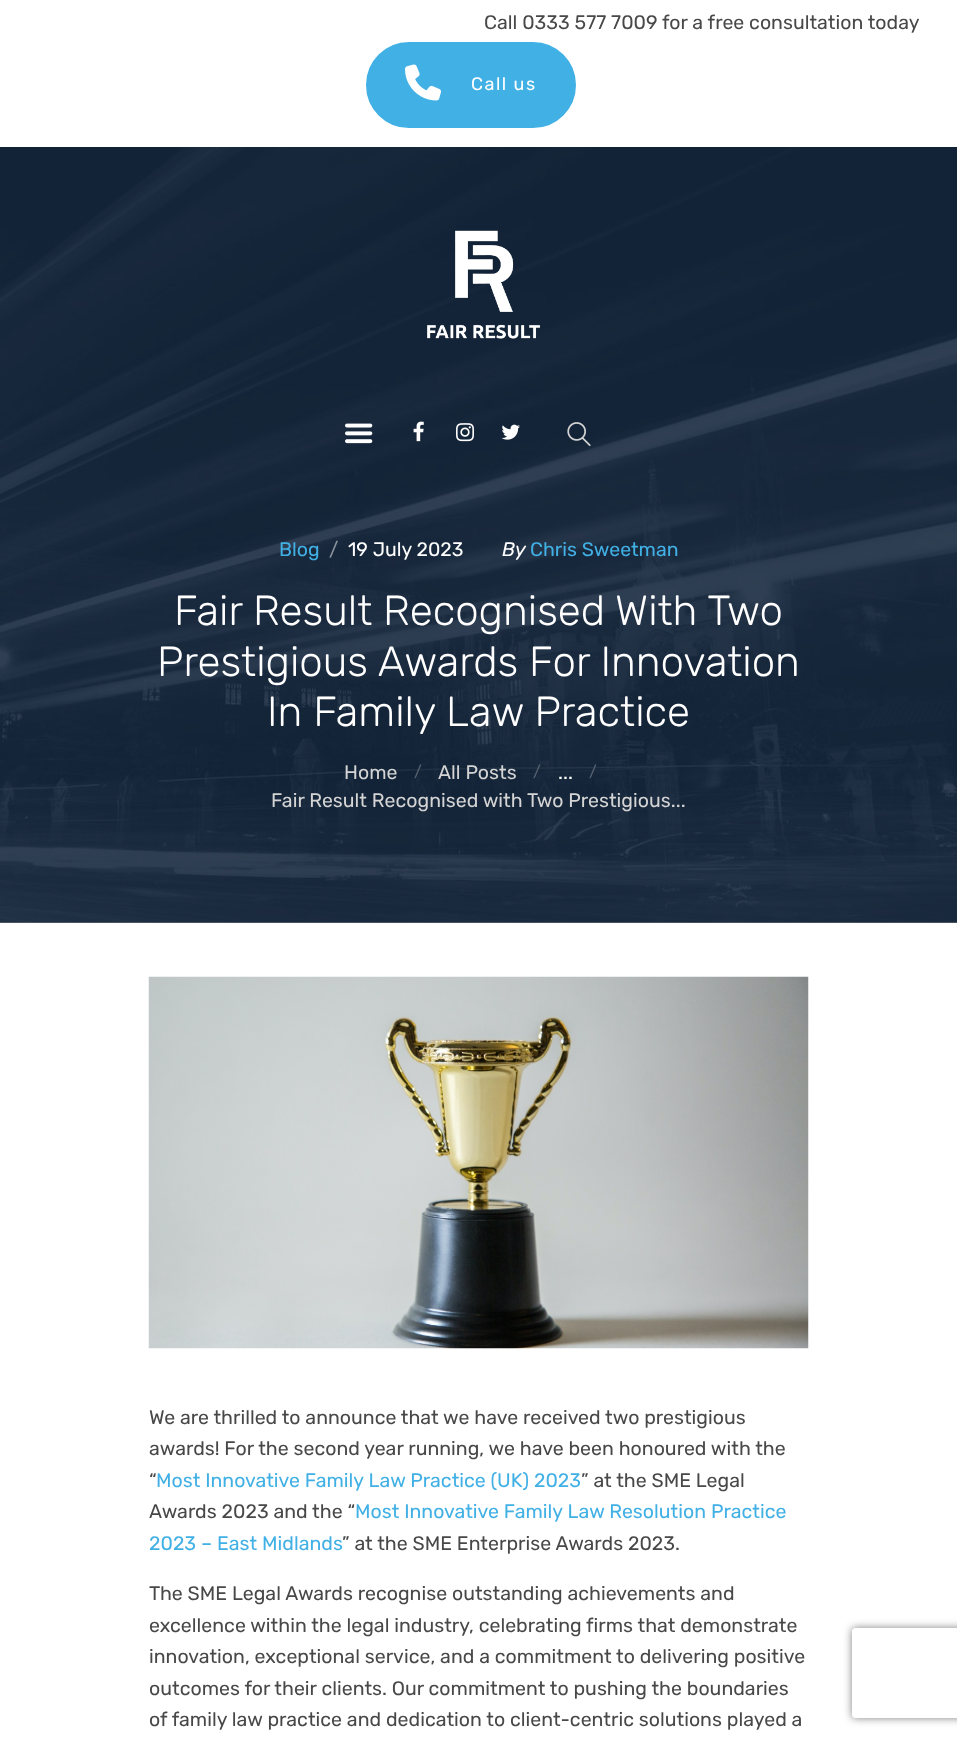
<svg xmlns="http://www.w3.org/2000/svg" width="957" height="1738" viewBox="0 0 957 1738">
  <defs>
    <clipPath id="clip1"><path d="M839 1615H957V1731H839ZM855 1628H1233C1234.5 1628 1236 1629.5 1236 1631V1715C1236 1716.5 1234.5 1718 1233 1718H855C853.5 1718 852 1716.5 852 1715V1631C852 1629.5 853.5 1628 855 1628Z" clip-rule="evenodd"/></clipPath>
  </defs>
  <rect width="100%" height="100%" fill="#fff"/>
  <path d="M0 922h957v1H0z" fill="#76767c"/>
  <image x="0" y="147" width="957" height="776" href="img/1.png"/>
  <rect x="364.5" y="40.5" width="213" height="89" rx="44.5" fill="#41b0e5" stroke="#fff" stroke-width="3"/>
  <image x="405" y="64" width="36" height="37" href="img/2.png"/>
  <image x="427" y="230" width="114" height="109" href="img/3.png"/>
  <image x="345" y="423" width="28" height="21" href="img/4.png"/>
  <image x="413" y="421" width="11" height="21" href="img/5.png"/>
  <image x="456" y="423" width="18" height="19" href="img/6.png"/>
  <image x="501" y="424" width="19" height="16" href="img/7.png"/>
  <image x="567" y="422" width="24" height="25" href="img/8.png"/>
  <image x="148" y="976" width="661" height="373" href="img/9.png"/>
  <g clip-path="url(#clip1)">
    <rect x="852" y="1628" width="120" height="90" rx="3" fill="#808080" filter="blur(4px)"/>
  </g>
  <text x="484" y="29" font-family="Rubik" font-size="19.5" letter-spacing="0.03" fill="#484848">Call 0333 577 7009 for a free consultation today</text>
  <text x="471" y="90" font-family="Rubik" font-size="18" letter-spacing="1.5" fill="#fff">Call us</text>
  <text x="279" y="556" font-family="Rubik" font-size="19.5" fill="#41b0e5">Blog</text>
  <text x="329" y="556" font-family="Rubik" font-size="19.5" fill="#89919b">/</text>
  <text x="348" y="556" font-family="Rubik" font-size="19.5" fill="#fff">19 July 2023</text>
  <text x="502" y="556" font-family="Rubik" font-size="19.5" font-style="italic" fill="#fff">By</text>
  <text x="530" y="556" font-family="Rubik" font-size="19.5" fill="#41b0e5">Chris Sweetman</text>
  <g font-family="Rubik" font-size="42" font-weight="300" fill="#fff">
    <text x="174" y="625">Fair Result Recognised With Two</text>
    <text x="157" y="676">Prestigious Awards For Innovation</text>
    <text x="267" y="726">In Family Law Practice</text>
  </g>
  <text x="344" y="779" font-family="Rubik" font-size="19.5" letter-spacing="0.03" fill="#d4d4d4">Home</text>
  <text x="414" y="777" font-family="Rubik" font-size="16" letter-spacing="0.03" fill="#56616e">/</text>
  <text x="438" y="779" font-family="Rubik" font-size="19.5" letter-spacing="0.03" fill="#d4d4d4">All Posts</text>
  <text x="533" y="777" font-family="Rubik" font-size="16" letter-spacing="0.03" fill="#56616e">/</text>
  <text x="558" y="779" font-family="Rubik" font-size="19.5" letter-spacing="0.03" fill="#fff">...</text>
  <text x="589" y="777" font-family="Rubik" font-size="16" letter-spacing="0.03" fill="#56616e">/</text>
  <text x="271" y="807" font-family="Rubik" font-size="19.5" letter-spacing="0.03" fill="#d4d4d4">Fair Result Recognised with Two Prestigious...</text>
  <g font-family="Rubik" font-size="19.5" letter-spacing="0.03" fill="#484848">
    <text x="149" y="1424">We are thrilled to announce that we have received two prestigious</text>
    <text x="149" y="1455">awards! For the second year running, we have been honoured with the</text>
    <text x="149" y="1487">“</text>
  </g>
  <text x="156" y="1487" font-family="Rubik" font-size="19.5" letter-spacing="0.03" fill="#41b0e5">Most Innovative Family Law Practice (UK) 2023</text>
  <g font-family="Rubik" font-size="19.5" letter-spacing="0.03" fill="#484848">
    <text x="581" y="1487">” at the SME Legal</text>
    <text x="149" y="1518">Awards 2023 and the “</text>
  </g>
  <g font-family="Rubik" font-size="19.5" letter-spacing="0.03" fill="#41b0e5">
    <text x="355" y="1518">Most Innovative Family Law Resolution Practice</text>
    <text x="149" y="1550">2023 – East Midlands</text>
  </g>
  <g font-family="Rubik" font-size="19.5" letter-spacing="0.03" fill="#484848">
    <text x="342" y="1550">” at the SME Enterprise Awards 2023.</text>
    <text x="149" y="1600">The SME Legal Awards recognise outstanding achievements and</text>
    <text x="149" y="1632">excellence within the legal industry, celebrating firms that demonstrate</text>
    <text x="149" y="1663">innovation, exceptional service, and a commitment to delivering positive</text>
    <text x="149" y="1695">outcomes for their clients. Our commitment to pushing the boundaries</text>
    <text x="149" y="1726">of family law practice and dedication to client-centric solutions played a</text>
  </g>
</svg>
